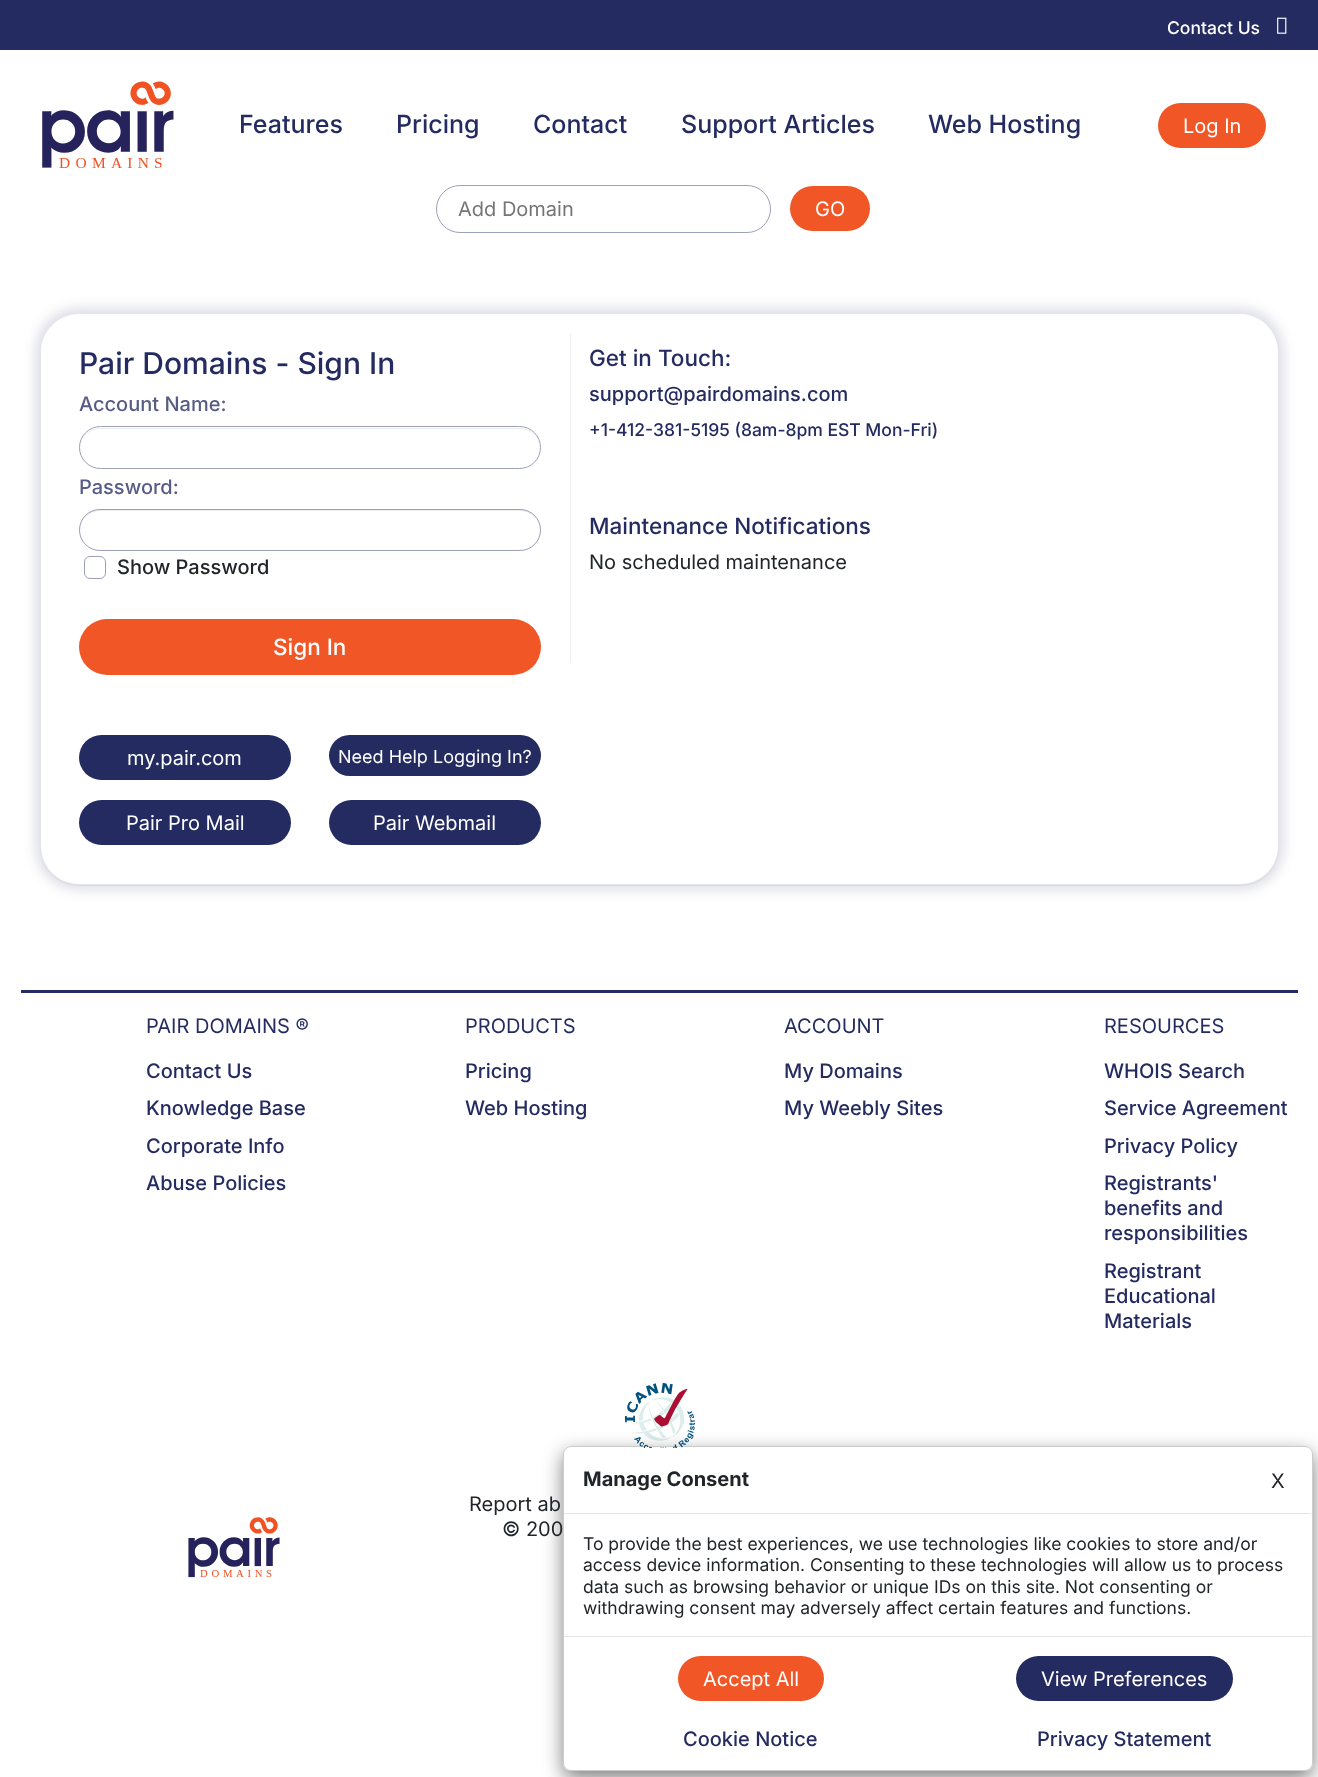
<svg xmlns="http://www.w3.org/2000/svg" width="1318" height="1777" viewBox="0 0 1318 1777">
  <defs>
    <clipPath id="clip1"><path d="M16 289H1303V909H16ZM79 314H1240C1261 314 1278 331 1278 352V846C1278 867 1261 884 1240 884H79C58 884 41 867 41 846V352C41 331 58 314 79 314Z" clip-rule="evenodd"/></clipPath>
    <clipPath id="clip2"><path d="M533 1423H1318V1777H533ZM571 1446H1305C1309.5 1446 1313 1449.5 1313 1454V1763C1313 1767.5 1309.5 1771 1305 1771H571C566.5 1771 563 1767.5 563 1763V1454C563 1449.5 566.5 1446 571 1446Z" clip-rule="evenodd"/></clipPath>
  </defs>
  <rect width="100%" height="100%" fill="#fff"/>
  <path d="M0 0h1318v50H0z" fill="#242b61"/>
  <image x="1277" y="17" width="10" height="17" href="img/1.png"/>
  <image x="42" y="81" width="132" height="87" href="img/2.png"/>
  <rect x="1158" y="103" width="108" height="45" rx="22.5" fill="#f15626"/>
  <rect x="436.5" y="185.5" width="334" height="47" rx="23.5" fill="none" stroke="#9ca0b8"/>
  <rect x="790" y="186" width="80" height="45" rx="22.5" fill="#f15626"/>
  <rect x="40" y="314" width="1239" height="572" rx="38" fill="#0000000d" filter="blur(0.5px)"/>
  <rect x="40" y="313" width="1239" height="572" rx="38" fill="#fff"/>
  <g clip-path="url(#clip1)">
    <rect x="35" y="308" width="1249" height="582" rx="44" fill="#242b6126" filter="blur(6px)"/>
  </g>
  <path d="M100 429H520C531 429 540 438 540 449C540 437 531 428 520 428H100C89 428 80 437 80 449C80 438 89 429 100 429Z" fill="#ececec"/>
  <rect x="79.5" y="426.5" width="461" height="42" rx="21" fill="none" stroke="#9ca0b8"/>
  <path d="M100 511H520C531 511 540 520 540 531C540 519 531 510 520 510H100C89 510 80 519 80 531C80 520 89 511 100 511Z" fill="#ececec"/>
  <rect x="79.5" y="509.5" width="461" height="41" rx="20.5" fill="none" stroke="#242b6173"/>
  <rect x="84.5" y="556.5" width="21" height="22" rx="5.5" fill="none" stroke="#9ca0b8"/>
  <rect x="79" y="619" width="462" height="56" rx="28" fill="#f15626"/>
  <rect x="79" y="735" width="212" height="45" rx="22.5" fill="#242b61"/>
  <rect x="329" y="735" width="212" height="41" rx="20.5" fill="#242b61"/>
  <rect x="79" y="800" width="212" height="45" rx="22.5" fill="#242b61"/>
  <rect x="329" y="800" width="212" height="45" rx="22.5" fill="#242b61"/>
  <path d="M570 333h1v330H570z" fill="#edeef2"/>
  <path d="M21 990h1277v3H21z" fill="#242b61"/>
  <image x="625" y="1383" width="70" height="65" href="img/3.png"/>
  <image x="188" y="1517" width="92" height="61" href="img/4.png"/>
  <g clip-path="url(#clip2)">
    <rect x="563" y="1453" width="750" height="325" rx="8" fill="#00000080" filter="blur(9.5px)"/>
  </g>
  <rect x="563.5" y="1446.5" width="749" height="324" rx="7.5" fill="none" stroke="#00000033"/>
  <path d="M564 1513h747v1H564z" fill="#e5e5e5"/>
  <path d="M564 1636h747v1H564z" fill="#e5e5e5"/>
  <rect x="678" y="1656" width="146" height="45" rx="22.5" fill="#f15626"/>
  <rect x="1016" y="1656" width="217" height="45" rx="22.5" fill="#242b61"/>
  <text x="1167" y="34" font-family="Inter" font-size="17.5" font-weight="500" fill="#fff">Contact Us</text>
  <g font-family="Inter" font-size="25" font-weight="500" fill="#242b61">
    <text x="239" y="133">Features</text>
    <text x="396" y="133">Pricing</text>
    <text x="533" y="133">Contact</text>
    <text x="681" y="133">Support Articles</text>
    <text x="928" y="133">Web Hosting</text>
  </g>
  <text x="1183" y="133" font-family="Inter" font-size="20" fill="#fff">Log In</text>
  <text x="458" y="216" font-family="Inter" font-size="20" fill="#757575">Add Domain</text>
  <text x="815" y="216" font-family="Inter" font-size="20" fill="#fff">GO</text>
  <text x="79" y="374" font-family="Inter" font-size="30" font-weight="500" fill="#242b61">Pair Domains - Sign In</text>
  <g font-family="Inter" font-size="20" font-weight="500" fill="#565c85">
    <text x="79" y="411">Account Name:</text>
    <text x="79" y="494">Password:</text>
  </g>
  <text x="117" y="574" font-family="Inter" font-size="20" font-weight="500" fill="#212529">Show Password</text>
  <text x="273" y="655" font-family="Inter" font-size="22.5" font-weight="500" fill="#fff">Sign In</text>
  <text x="127" y="765" font-family="Inter" font-size="20" fill="#fff">my.pair.com</text>
  <text x="338" y="763" font-family="Inter" font-size="18" fill="#fff">Need Help Logging In?</text>
  <g font-family="Inter" font-size="20" fill="#fff">
    <text x="126" y="830">Pair Pro Mail</text>
    <text x="373" y="830">Pair Webmail</text>
  </g>
  <text x="589" y="366" font-family="Inter" font-size="22.5" font-weight="500" fill="#242b61">Get in Touch:</text>
  <text x="589" y="401" font-family="Inter" font-size="20" font-weight="500" fill="#242b61">support@pairdomains.com</text>
  <text x="589" y="436" font-family="Inter" font-size="17.5" font-weight="500" fill="#242b61">+1-412-381-5195 (8am-8pm EST Mon-Fri)</text>
  <text x="589" y="534" font-family="Inter" font-size="22.5" font-weight="500" fill="#242b61">Maintenance Notifications</text>
  <text x="589" y="569" font-family="Inter" font-size="20" fill="#212529">No scheduled maintenance</text>
  <text x="146" y="1033" font-family="Inter" font-size="20" fill="#242b61">PAIR DOMAINS ®</text>
  <g font-family="Inter" font-size="20" font-weight="500" fill="#242b61">
    <text x="146" y="1078">Contact Us</text>
    <text x="146" y="1115">Knowledge Base</text>
    <text x="146" y="1153">Corporate Info</text>
    <text x="146" y="1190">Abuse Policies</text>
  </g>
  <text x="465" y="1033" font-family="Inter" font-size="20" fill="#242b61">PRODUCTS</text>
  <g font-family="Inter" font-size="20" font-weight="500" fill="#242b61">
    <text x="465" y="1078">Pricing</text>
    <text x="465" y="1115">Web Hosting</text>
  </g>
  <text x="784" y="1033" font-family="Inter" font-size="20" fill="#242b61">ACCOUNT</text>
  <g font-family="Inter" font-size="20" font-weight="500" fill="#242b61">
    <text x="784" y="1078">My Domains</text>
    <text x="784" y="1115">My Weebly Sites</text>
  </g>
  <text x="1104" y="1033" font-family="Inter" font-size="20" fill="#242b61">RESOURCES</text>
  <g font-family="Inter" font-size="20" font-weight="500" fill="#242b61">
    <text x="1104" y="1078">WHOIS Search</text>
    <text x="1104" y="1115">Service Agreement</text>
    <text x="1104" y="1153">Privacy Policy</text>
    <text x="1104" y="1190">Registrants'</text>
    <text x="1104" y="1215">benefits and</text>
    <text x="1104" y="1240">responsibilities</text>
    <text x="1104" y="1278">Registrant</text>
    <text x="1104" y="1303">Educational</text>
    <text x="1104" y="1328">Materials</text>
  </g>
  <g font-family="Inter" font-size="20" fill="#212529">
    <text x="469" y="1511">Report ab</text>
    <text x="502" y="1536">© 200</text>
  </g>
  <text x="583" y="1486" font-family="Inter" font-size="20" font-weight="bold" fill="#212529">Manage Consent</text>
  <text x="1271" y="1488" font-family="Inter" font-size="20" fill="#212529">X</text>
  <g font-family="Inter" font-size="17.5" fill="#212529">
    <text x="583" y="1550">To provide the best experiences, we use technologies like cookies to store and/or</text>
    <text x="583" y="1571">access device information. Consenting to these technologies will allow us to process</text>
    <text x="583" y="1593">data such as browsing behavior or unique IDs on this site. Not consenting or</text>
    <text x="583" y="1614">withdrawing consent may adversely affect certain features and functions.</text>
  </g>
  <g font-family="Inter" font-size="20" fill="#fff">
    <text x="703" y="1686">Accept All</text>
    <text x="1041" y="1686">View Preferences</text>
  </g>
  <g font-family="Inter" font-size="20" font-weight="500" fill="#242b61">
    <text x="683" y="1746">Cookie Notice</text>
    <text x="1037" y="1746">Privacy Statement</text>
  </g>
</svg>
